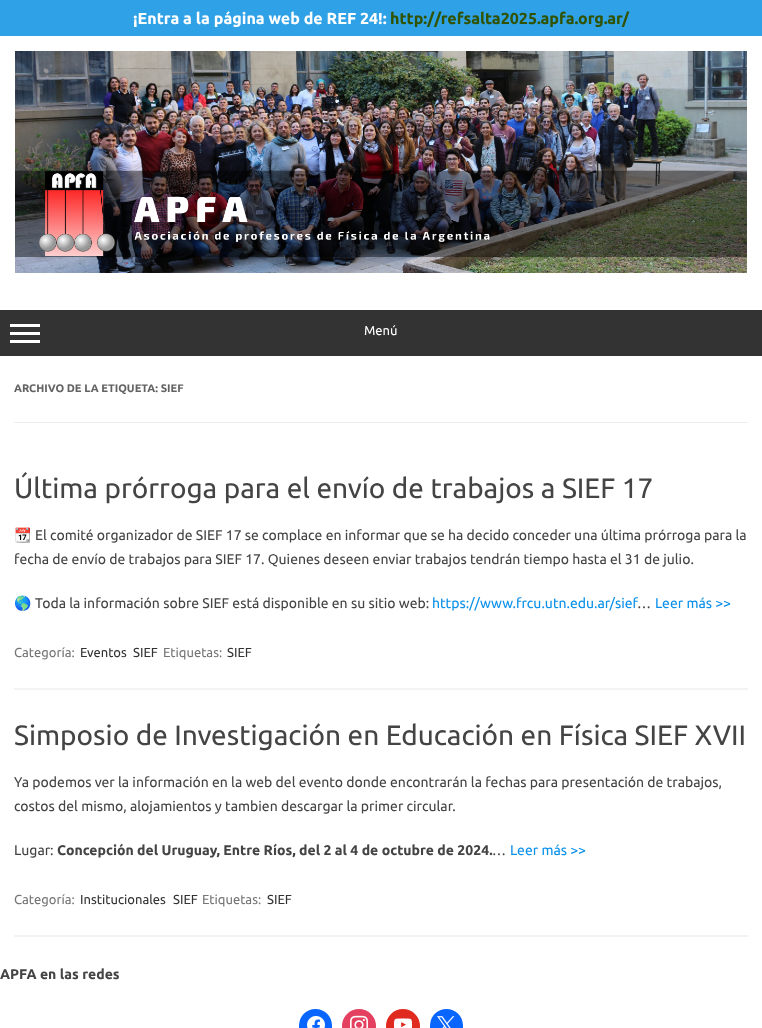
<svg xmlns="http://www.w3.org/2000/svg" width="762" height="1028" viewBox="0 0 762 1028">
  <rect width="100%" height="100%" fill="#fff"/>
  <path d="M0 0h762v36H0z" fill="#2fa1e7"/>
  <image x="15" y="51" width="732" height="222" href="img/1.png"/>
  <path d="M0 310h762v46H0z" fill="#333"/>
  <path d="M10 324h30v3H10z" fill="#fff"/>
  <path d="M10 332h30v3H10z" fill="#fff"/>
  <path d="M10 340h30v3H10z" fill="#fff"/>
  <path d="M14 422h734v1H14z" fill="#ededed"/>
  <path d="M14 688h734v2H14z" fill="#f3f3f3"/>
  <path d="M14 935h734v2H14z" fill="#f3f3f3"/>
  <rect x="299" y="1009" width="33" height="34" rx="16.5" fill="#0866ff"/>
  <image x="307" y="1016" width="18" height="12" href="img/2.png"/>
  <circle cx="359" cy="1026" r="17" fill="#e4405f"/>
  <image x="350" y="1015" width="18" height="13" href="img/3.png"/>
  <circle cx="403" cy="1026" r="17" fill="#e02a20"/>
  <image x="394" y="1018" width="19" height="10" href="img/4.png"/>
  <rect x="430" y="1009" width="33" height="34" rx="16.5" fill="#0866ff"/>
  <image x="437" y="1016" width="18" height="12" href="img/5.png"/>
  <text x="133" y="24" font-family="Ubuntu" font-size="16" font-weight="bold" fill="#fff">¡Entra a la página web de REF 24!:</text>
  <text x="390" y="24" font-family="Ubuntu" font-size="16" font-weight="bold" fill="#315200">http://refsalta2025.apfa.org.ar/</text>
  <text x="364" y="335" font-family="Ubuntu" font-size="13" fill="#fff">Menú</text>
  <text x="14" y="392" font-family="Ubuntu" font-size="11" font-weight="bold" fill="#636363">ARCHIVO DE LA ETIQUETA: SIEF</text>
  <text x="14" y="498" font-family="Ubuntu" font-size="28" fill="#444">Última prórroga para el envío de trabajos a SIEF 17</text>
  <text x="14" y="540" font-family="Noto Color Emoji" font-size="14" fill="#444">📆</text>
  <g font-family="Ubuntu" font-size="14" fill="#444">
    <text x="35" y="540">El comité organizador de SIEF 17 se complace en informar que se ha decido conceder una última prórroga para la</text>
    <text x="14" y="564">fecha de envío de trabajos para SIEF 17. Quienes deseen enviar trabajos tendrán tiempo hasta el 31 de julio.</text>
  </g>
  <text x="14" y="608" font-family="Noto Color Emoji" font-size="14" fill="#444">🌎</text>
  <text x="35" y="608" font-family="Ubuntu" font-size="14" fill="#444">Toda la información sobre SIEF está disponible en su sitio web:</text>
  <text x="432" y="608" font-family="Ubuntu" font-size="14" fill="#0b91ea">https://www.frcu.utn.edu.ar/sief</text>
  <text x="637" y="608" font-family="Ubuntu" font-size="14" fill="#444">…</text>
  <text x="655" y="608" font-family="Ubuntu" font-size="14" fill="#0b91ea">Leer más &gt;&gt;</text>
  <text x="14" y="657" font-family="Ubuntu" font-size="13" fill="#757575">Categoría:</text>
  <g font-family="Ubuntu" font-size="13" fill="#333">
    <text x="80" y="657">Eventos</text>
    <text x="133" y="657">SIEF</text>
  </g>
  <text x="163" y="657" font-family="Ubuntu" font-size="13" fill="#757575">Etiquetas:</text>
  <text x="227" y="657" font-family="Ubuntu" font-size="13" fill="#333">SIEF</text>
  <text x="14" y="745" font-family="Ubuntu" font-size="28" fill="#444">Simposio de Investigación en Educación en Física SIEF XVII</text>
  <g font-family="Ubuntu" font-size="14" fill="#444">
    <text x="14" y="787">Ya podemos ver la información en la web del evento donde encontrarán la fechas para presentación de trabajos,</text>
    <text x="14" y="811">costos del mismo, alojamientos y tambien descargar la primer circular.</text>
    <text x="14" y="855">Lugar:</text>
  </g>
  <text x="57" y="855" font-family="Ubuntu" font-size="14" font-weight="bold" fill="#444">Concepción del Uruguay, Entre Ríos, del 2 al 4 de octubre de 2024.</text>
  <text x="492" y="855" font-family="Ubuntu" font-size="14" fill="#444">…</text>
  <text x="510" y="855" font-family="Ubuntu" font-size="14" fill="#0b91ea">Leer más &gt;&gt;</text>
  <text x="14" y="904" font-family="Ubuntu" font-size="13" fill="#757575">Categoría:</text>
  <g font-family="Ubuntu" font-size="13" fill="#333">
    <text x="80" y="904">Institucionales</text>
    <text x="173" y="904">SIEF</text>
  </g>
  <text x="202" y="904" font-family="Ubuntu" font-size="13" fill="#757575">Etiquetas:</text>
  <text x="267" y="904" font-family="Ubuntu" font-size="13" fill="#333">SIEF</text>
  <text x="0" y="979" font-family="Ubuntu" font-size="14" font-weight="bold" fill="#444">APFA en las redes</text>
</svg>
